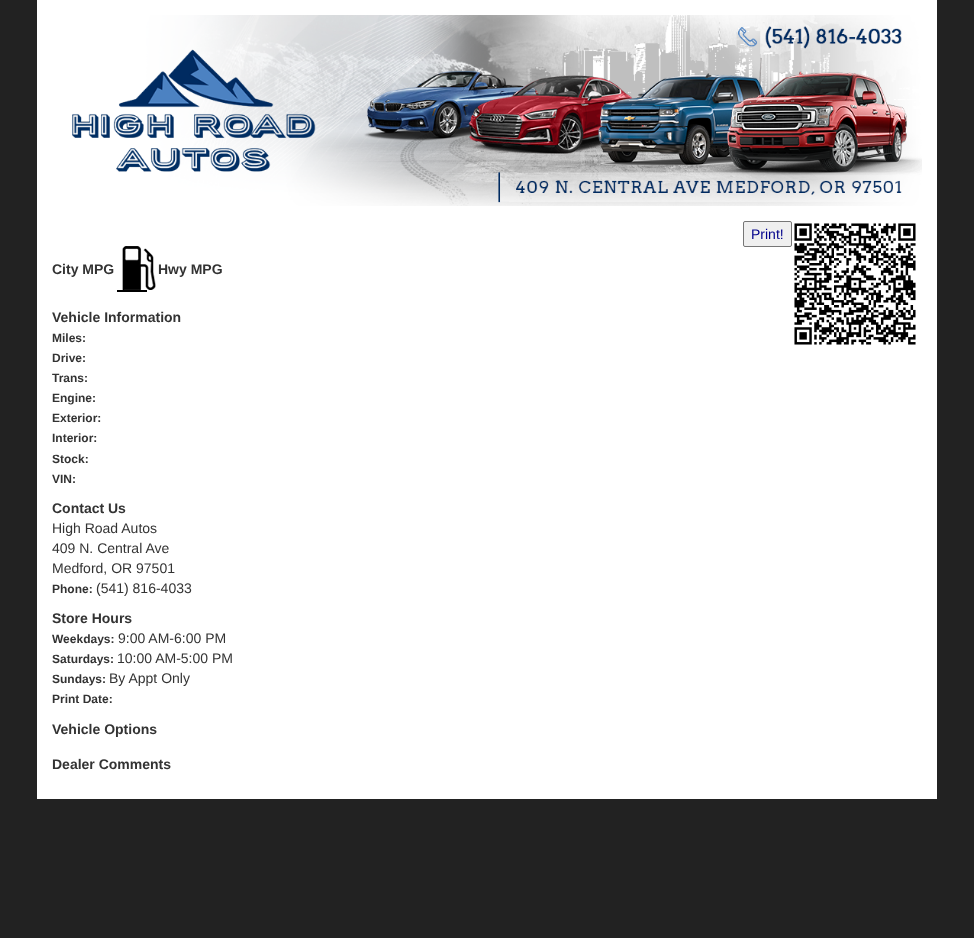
<svg xmlns="http://www.w3.org/2000/svg" width="974" height="938" viewBox="0 0 974 938">
  <rect width="100%" height="100%" fill="#222"/>
  <path d="M37 0h900v799H37z" fill="#fff"/>
  <image x="72" y="15" width="850" height="191" href="img/1.png"/>
  <rect x="743.5" y="221.5" width="48" height="25" rx="1.5" fill="#efefef" stroke="#767676"/>
  <image x="794" y="223" width="122" height="122" href="img/2.png"/>
  <image x="117" y="246" width="39" height="46" href="img/3.png"/>
  <text x="751" y="239" font-family="Liberation Sans" font-size="14" fill="#00008b">Print!</text>
  <g font-family="Liberation Sans" font-size="14" font-weight="bold" fill="#333">
    <text x="52" y="274">City MPG</text>
    <text x="158" y="274">Hwy MPG</text>
    <text x="52" y="322">Vehicle Information</text>
  </g>
  <g font-family="Liberation Sans" font-size="12" font-weight="bold" fill="#333">
    <text x="52" y="342">Miles:</text>
    <text x="52" y="362">Drive:</text>
    <text x="52" y="382">Trans:</text>
    <text x="52" y="402">Engine:</text>
    <text x="52" y="422">Exterior:</text>
    <text x="52" y="442">Interior:</text>
    <text x="52" y="463">Stock:</text>
    <text x="52" y="483">VIN:</text>
  </g>
  <text x="52" y="513" font-family="Liberation Sans" font-size="14" font-weight="bold" fill="#333">Contact Us</text>
  <g font-family="Liberation Sans" font-size="14" fill="#333">
    <text x="52" y="533">High Road Autos</text>
    <text x="52" y="553">409 N. Central Ave</text>
    <text x="52" y="573">Medford, OR 97501</text>
  </g>
  <text x="52" y="593" font-family="Liberation Sans" font-size="12" font-weight="bold" fill="#333">Phone:</text>
  <text x="96" y="593" font-family="Liberation Sans" font-size="14" fill="#333">(541) 816-4033</text>
  <text x="52" y="623" font-family="Liberation Sans" font-size="14" font-weight="bold" fill="#333">Store Hours</text>
  <text x="52" y="643" font-family="Liberation Sans" font-size="12" font-weight="bold" fill="#333">Weekdays:</text>
  <text x="118" y="643" font-family="Liberation Sans" font-size="14" fill="#333">9:00 AM-6:00 PM</text>
  <text x="52" y="663" font-family="Liberation Sans" font-size="12" font-weight="bold" fill="#333">Saturdays:</text>
  <text x="117" y="663" font-family="Liberation Sans" font-size="14" fill="#333">10:00 AM-5:00 PM</text>
  <text x="52" y="683" font-family="Liberation Sans" font-size="12" font-weight="bold" fill="#333">Sundays:</text>
  <text x="109" y="683" font-family="Liberation Sans" font-size="14" fill="#333">By Appt Only</text>
  <text x="52" y="703" font-family="Liberation Sans" font-size="12" font-weight="bold" fill="#333">Print Date:</text>
  <g font-family="Liberation Sans" font-size="14" font-weight="bold" fill="#333">
    <text x="52" y="734">Vehicle Options</text>
    <text x="52" y="769">Dealer Comments</text>
  </g>
</svg>
